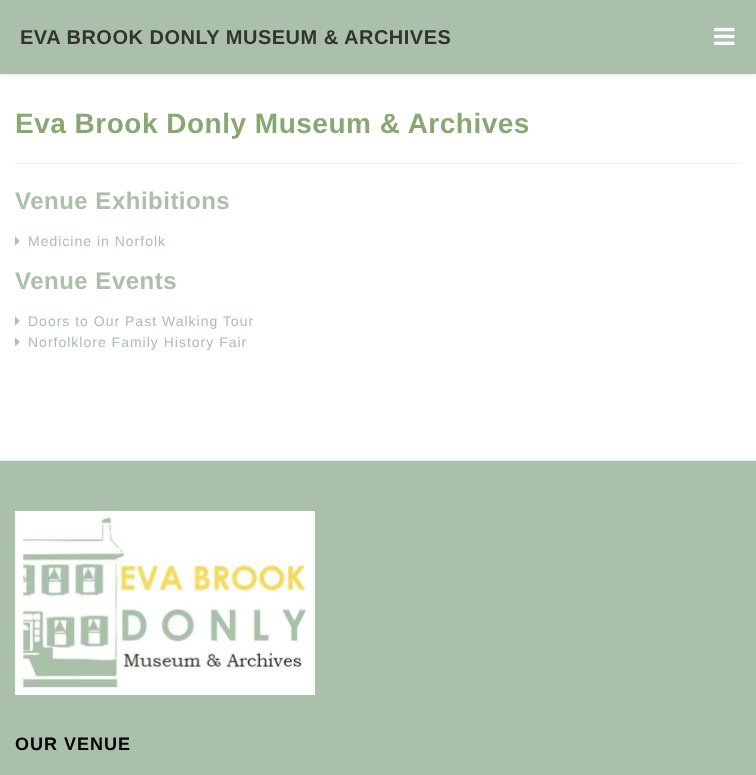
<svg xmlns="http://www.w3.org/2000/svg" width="756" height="775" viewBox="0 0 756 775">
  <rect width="100%" height="100%" fill="#fff"/>
  <path d="M0 1h756v74H0z" fill="#0000001a" filter="blur(1px)"/>
  <path d="M0 0h756v74H0z" fill="#aac0aa"/>
  <image x="714" y="27" width="21" height="18" href="img/1.png"/>
  <path d="M15 163h726v1H15z" fill="#eee"/>
  <image x="15" y="237" width="5" height="8" href="img/2.png"/>
  <image x="15" y="317" width="5" height="8" href="img/2.png"/>
  <image x="15" y="338" width="5" height="8" href="img/2.png"/>
  <path d="M0 461h756v314H0z" fill="#aac0aa"/>
  <path d="M0 460h756v1H0z" fill="#eee"/>
  <image x="15" y="511" width="300" height="184" href="img/3.png"/>
  <text x="20" y="44" font-family="Liberation Sans" font-size="20" font-weight="bold" letter-spacing="0.5" fill="#333">EVA BROOK DONLY MUSEUM &amp; ARCHIVES</text>
  <text x="15" y="133" font-family="Liberation Sans" font-size="28" font-weight="bold" letter-spacing="0.5" fill="#89a871">Eva Brook Donly Museum &amp; Archives</text>
  <text x="15" y="209" font-family="Liberation Sans" font-size="24" font-weight="bold" letter-spacing="0.5" fill="#aac0aa">Venue Exhibitions</text>
  <text x="28" y="246" font-family="Liberation Sans" font-size="14" letter-spacing="1" fill="#aac0aa">Medicine in Norfolk</text>
  <text x="15" y="289" font-family="Liberation Sans" font-size="24" font-weight="bold" letter-spacing="0.5" fill="#aac0aa">Venue Events</text>
  <g font-family="Liberation Sans" font-size="14" letter-spacing="1" fill="#aac0aa">
    <text x="28" y="326">Doors to Our Past Walking Tour</text>
    <text x="28" y="347">Norfolklore Family History Fair</text>
  </g>
  <text x="15" y="750" font-family="Liberation Sans" font-size="18" font-weight="bold" letter-spacing="1" fill="#000">OUR VENUE</text>
</svg>
